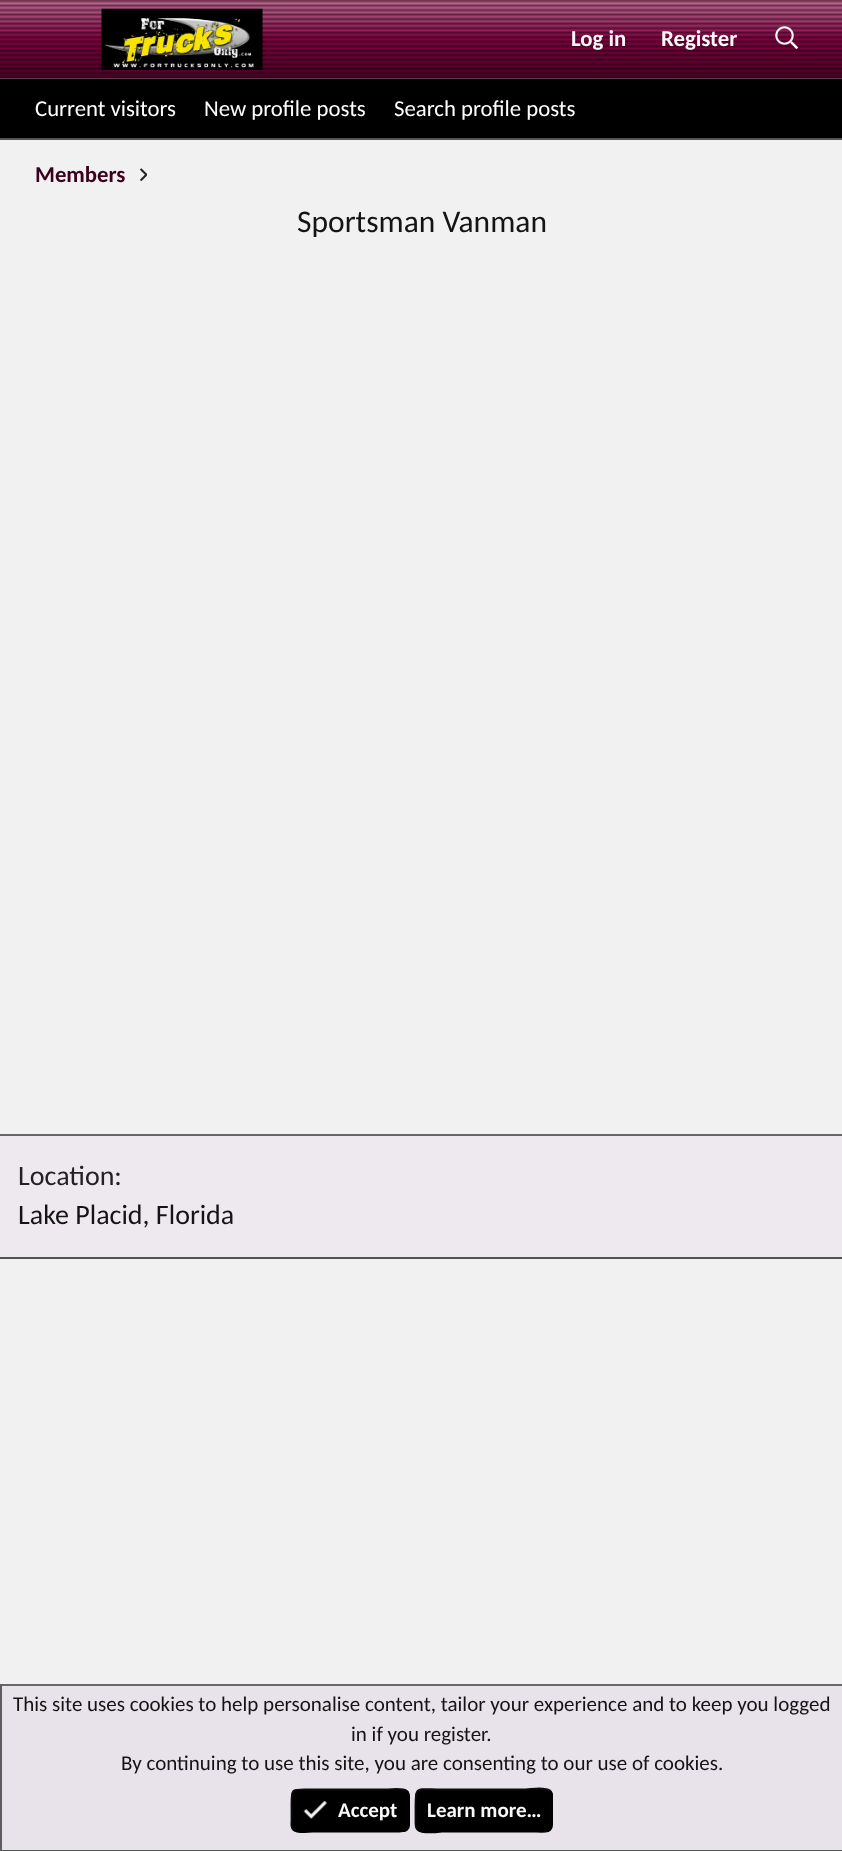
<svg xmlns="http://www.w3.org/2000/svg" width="842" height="1851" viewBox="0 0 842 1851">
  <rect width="100%" height="100%" fill="#f1f1f1"/>
  <image x="0" y="0" width="842" height="79" href="img/1.png"/>
  <image x="101" y="8" width="162" height="62" href="img/2.png"/>
  <image x="775" y="26" width="23" height="23" href="img/3.png"/>
  <path d="M0 79h842v59H0z" fill="#000"/>
  <path d="M0 138h842v2H0z" fill="#535353"/>
  <image x="140" y="168" width="7" height="13" href="img/4.png"/>
  <path d="M0 1136h842v121H0z" fill="#eee9ef"/>
  <path d="M0 1134h842v2H0z" fill="#676767"/>
  <path d="M0 1257h842v2H0z" fill="#535353"/>
  <path d="M2 1686h840v164H2z" fill="#e8e2ea"/>
  <path d="M0 1684h842v2H0z" fill="#676767"/>
  <path d="M0 1850h842v1H0z" fill="#535353"/>
  <path d="M0 1684h2v167H0z" fill="#5d5d5d"/>
  <rect x="291" y="1789" width="119" height="43" rx="7" fill="#000"/>
  <path d="M407 1791C409.5 1793.5 408.5 1797.5 408.5 1800.5V1810.5C408.5 1834.5 411 1831.5 385 1831.5H315C312.5 1831.5 297.5 1834 293 1829.5" fill="none" stroke="#000" stroke-width="1.8"/>
  <path d="M293 1829.5C290.5 1827 291.5 1823.5 291.5 1820.5V1810.5C291.5 1786 289 1789.5 315 1789.5H385C387.5 1789.5 402.5 1787 407 1791" fill="none" stroke="#0d0d0d" stroke-width="1.8"/>
  <image x="303" y="1801" width="24" height="19" href="img/5.png"/>
  <rect x="415" y="1789" width="138" height="43" rx="7" fill="#000"/>
  <path d="M550.5 1791C553 1793.5 552 1797.5 552 1800.5V1810.5C552 1836 553.5 1831.5 525.5 1831.5H442.5C442 1831.5 422.5 1834.5 417.5 1829.5" fill="none" stroke="#000" stroke-width="1.8"/>
  <path d="M417.5 1829.5C415 1827 415.5 1823.5 415.5 1820.5V1810.5C415.5 1784.5 414 1789.5 442.5 1789.5H525.5C525.5 1789.5 545.5 1786.5 550.5 1791" fill="none" stroke="#0d0d0d" stroke-width="1.8"/>
  <g font-family="Carlito" font-size="22.75" font-weight="bold" fill="#f8f8f8">
    <text x="571" y="46">Log in</text>
    <text x="661" y="46">Register</text>
  </g>
  <g font-family="Carlito" font-size="22.75" fill="#fff">
    <text x="35" y="116">Current visitors</text>
    <text x="204" y="116">New profile posts</text>
    <text x="394" y="116">Search profile posts</text>
  </g>
  <text x="35" y="182" font-family="Carlito" font-size="22.75" font-weight="bold" fill="#3d001e">Members</text>
  <text x="297" y="232" font-family="Carlito" font-size="31.5" fill="#141414">Sportsman Vanman</text>
  <text x="18" y="1185" font-family="Carlito" font-size="28" fill="#222">Location:</text>
  <text x="18" y="1224" font-family="Carlito" font-size="28" fill="#141414">Lake Placid, Florida</text>
  <g font-family="Carlito" font-size="21" fill="#141414">
    <text x="13" y="1711">This site uses cookies to help personalise content, tailor your experience and to keep you logged</text>
    <text x="351" y="1741">in if you register.</text>
    <text x="121" y="1770">By continuing to use this site, you are consenting to our use of cookies.</text>
  </g>
  <g font-family="Carlito" font-size="21" font-weight="bold" fill="#f8f8f8">
    <text x="338" y="1817">Accept</text>
    <text x="427" y="1817">Learn more…</text>
  </g>
</svg>
